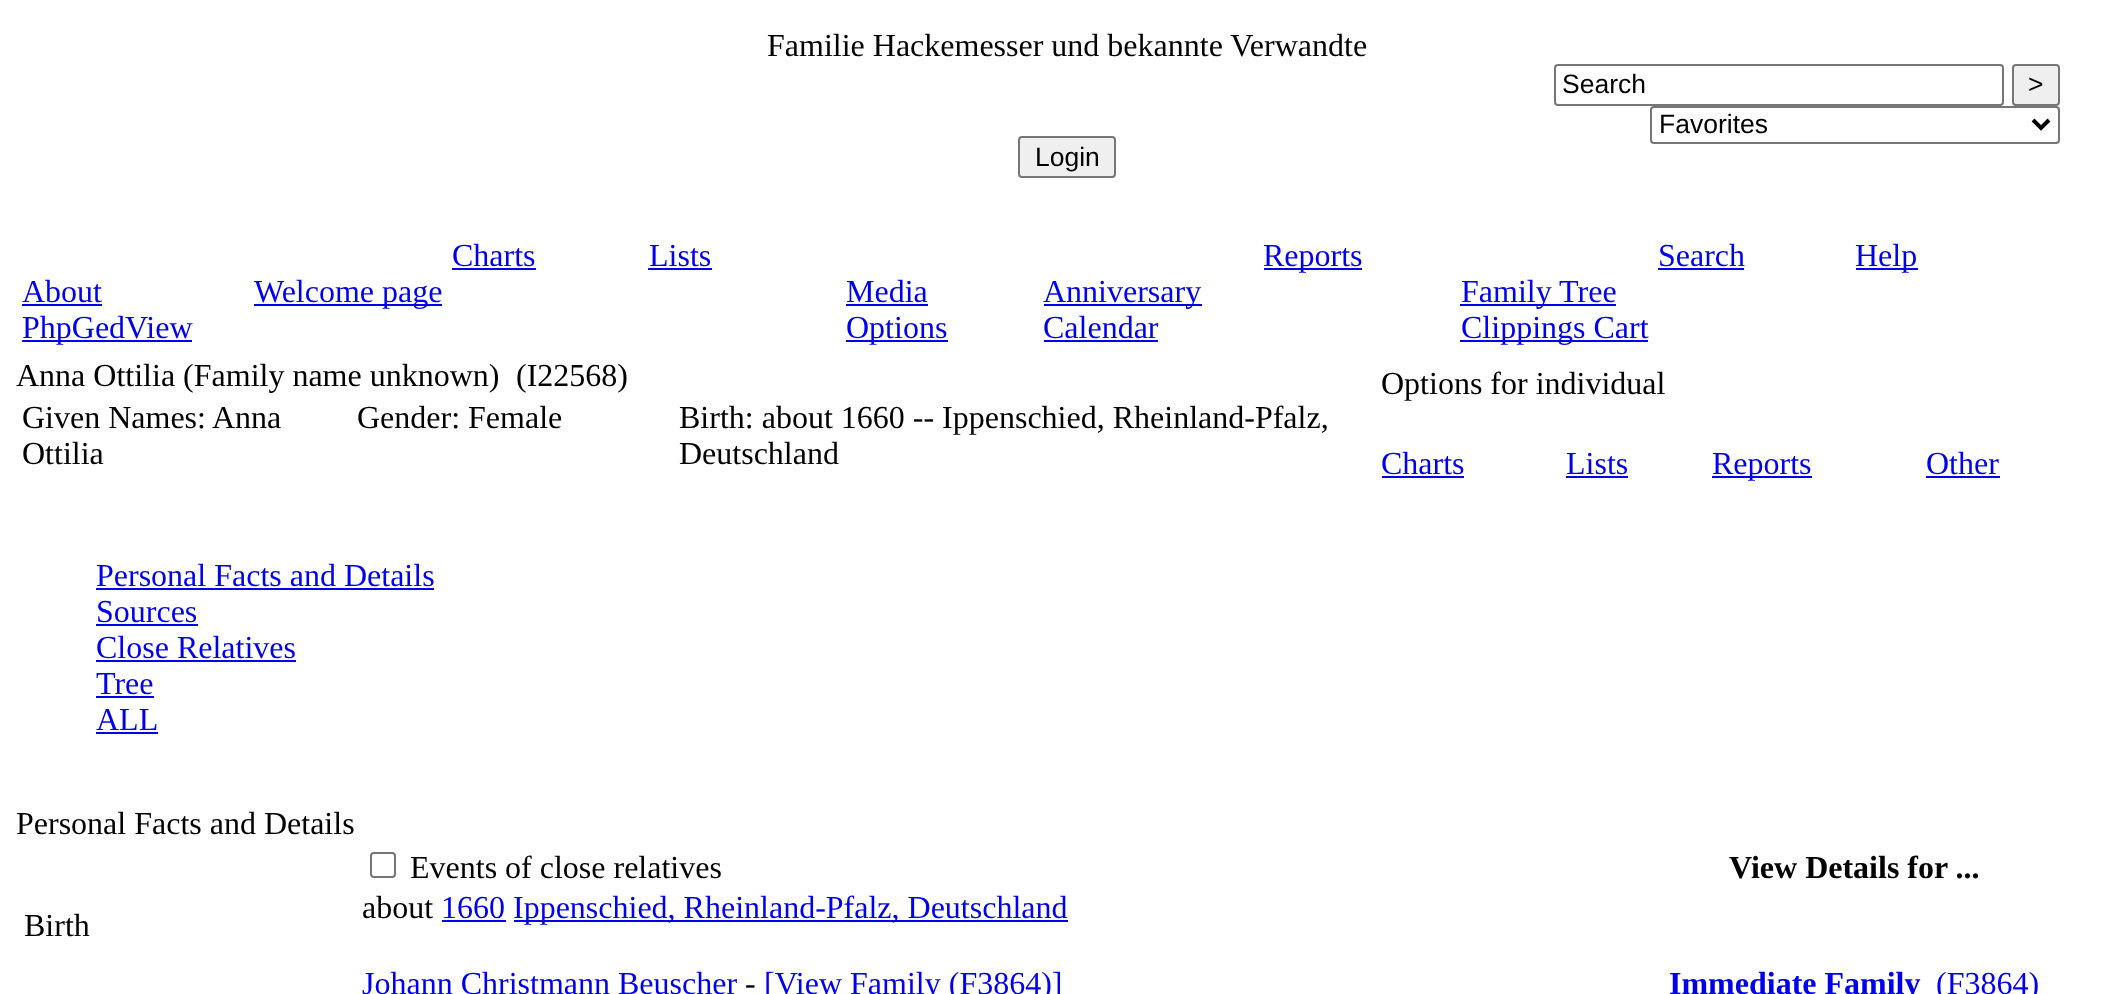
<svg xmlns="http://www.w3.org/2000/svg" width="2107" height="994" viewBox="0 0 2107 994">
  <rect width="100%" height="100%" fill="#fff"/>
  <rect x="1019" y="137" width="96" height="40" rx="3" fill="#efefef" stroke="#767676" stroke-width="2"/>
  <rect x="1555" y="65" width="448" height="40" rx="3" fill="none" stroke="#767676" stroke-width="2"/>
  <rect x="2013" y="65" width="46" height="40" rx="3" fill="#efefef" stroke="#767676" stroke-width="2"/>
  <rect x="1651" y="107" width="408" height="36" rx="3" fill="none" stroke="#767676" stroke-width="2"/>
  <path d="M2033 120L2041 128L2049 120" fill="none" stroke="#000" stroke-width="4"/>
  <path d="M452 268h84v2H452z" fill="#00e"/>
  <path d="M648 268h64v2H648z" fill="#00e"/>
  <path d="M1264 268h98v2H1264z" fill="#00e"/>
  <path d="M1658 268h86v2H1658z" fill="#00e"/>
  <path d="M1856 268h62v2H1856z" fill="#00e"/>
  <path d="M22 304h80v2H22z" fill="#00e"/>
  <path d="M22 340h170v2H22z" fill="#00e"/>
  <path d="M254 304h188v2H254z" fill="#00e"/>
  <path d="M846 304h82v2H846z" fill="#00e"/>
  <path d="M846 340h102v2H846z" fill="#00e"/>
  <path d="M1044 304h158v2H1044z" fill="#00e"/>
  <path d="M1044 340h114v2H1044z" fill="#00e"/>
  <path d="M1460 304h156v2H1460z" fill="#00e"/>
  <path d="M1460 340h188v2H1460z" fill="#00e"/>
  <path d="M1382 476h82v2H1382z" fill="#00e"/>
  <path d="M1566 476h62v2H1566z" fill="#00e"/>
  <path d="M1712 476h100v2H1712z" fill="#00e"/>
  <path d="M1926 476h74v2H1926z" fill="#00e"/>
  <path d="M96 588h338v2H96z" fill="#00e"/>
  <path d="M96 624h102v2H96z" fill="#00e"/>
  <path d="M96 660h200v2H96z" fill="#00e"/>
  <path d="M96 696h58v2H96z" fill="#00e"/>
  <path d="M96 732h62v2H96z" fill="#00e"/>
  <rect x="371" y="853" width="24" height="24" rx="3" fill="none" stroke="#767676" stroke-width="2"/>
  <path d="M442 920h64v2H442z" fill="#00e"/>
  <path d="M514 920h554v2H514z" fill="#00e"/>
  <text x="767" y="56" font-family="Liberation Serif" font-size="32" fill="#000">Familie Hackemesser und bekannte Verwandte</text>
  <g font-family="Liberation Sans" font-size="26.5" fill="#000">
    <text x="1035" y="166">Login</text>
    <text x="1562" y="93">Search</text>
    <text x="2028" y="93">&gt;</text>
    <text x="1659" y="133">Favorites</text>
  </g>
  <g font-family="Liberation Serif" font-size="32" fill="#00e">
    <text x="452" y="266">Charts</text>
    <text x="649" y="266">Lists</text>
    <text x="1263" y="266">Reports</text>
    <text x="1658" y="266">Search</text>
    <text x="1855" y="266">Help</text>
    <text x="22" y="302">About</text>
    <text x="22" y="338">PhpGedView</text>
    <text x="254" y="302">Welcome page</text>
    <text x="846" y="302">Media</text>
    <text x="846" y="338">Options</text>
    <text x="1043" y="302">Anniversary</text>
    <text x="1043" y="338">Calendar</text>
    <text x="1461" y="302">Family Tree</text>
    <text x="1461" y="338">Clippings Cart</text>
  </g>
  <g font-family="Liberation Serif" font-size="32" fill="#000">
    <text x="16" y="386">Anna Ottilia (Family name unknown)</text>
    <text x="516" y="386">(I22568)</text>
    <text x="22" y="428">Given Names:</text>
    <text x="212" y="428">Anna</text>
    <text x="22" y="464">Ottilia</text>
    <text x="357" y="428">Gender: Female</text>
    <text x="679" y="428">Birth: about 1660 -- Ippenschied, Rheinland-Pfalz,</text>
    <text x="679" y="464">Deutschland</text>
    <text x="1381" y="394">Options for individual</text>
  </g>
  <g font-family="Liberation Serif" font-size="32" fill="#00e">
    <text x="1381" y="474">Charts</text>
    <text x="1566" y="474">Lists</text>
    <text x="1712" y="474">Reports</text>
    <text x="1926" y="474">Other</text>
    <text x="96" y="586">Personal Facts and Details</text>
    <text x="96" y="622">Sources</text>
    <text x="96" y="658">Close Relatives</text>
    <text x="96" y="694">Tree</text>
    <text x="96" y="730">ALL</text>
  </g>
  <g font-family="Liberation Serif" font-size="32" fill="#000">
    <text x="16" y="834">Personal Facts and Details</text>
    <text x="410" y="878">Events of close relatives</text>
    <text x="24" y="936">Birth</text>
    <text x="362" y="918">about</text>
  </g>
  <g font-family="Liberation Serif" font-size="32" fill="#00e">
    <text x="441" y="918">1660</text>
    <text x="513" y="918">Ippenschied, Rheinland-Pfalz, Deutschland</text>
    <text x="362" y="994">Johann Christmann Beuscher</text>
  </g>
  <text x="745" y="994" font-family="Liberation Serif" font-size="32" fill="#000">-</text>
  <text x="764" y="994" font-family="Liberation Serif" font-size="32" fill="#00e">[View Family (F3864)]</text>
  <text x="1729" y="878" font-family="Liberation Serif" font-size="32" font-weight="bold" fill="#000">View Details for ...</text>
  <text x="1669" y="994" font-family="Liberation Serif" font-size="32" font-weight="bold" fill="#00e">Immediate Family</text>
  <text x="1936" y="994" font-family="Liberation Serif" font-size="32" fill="#00e">(F3864)</text>
</svg>
